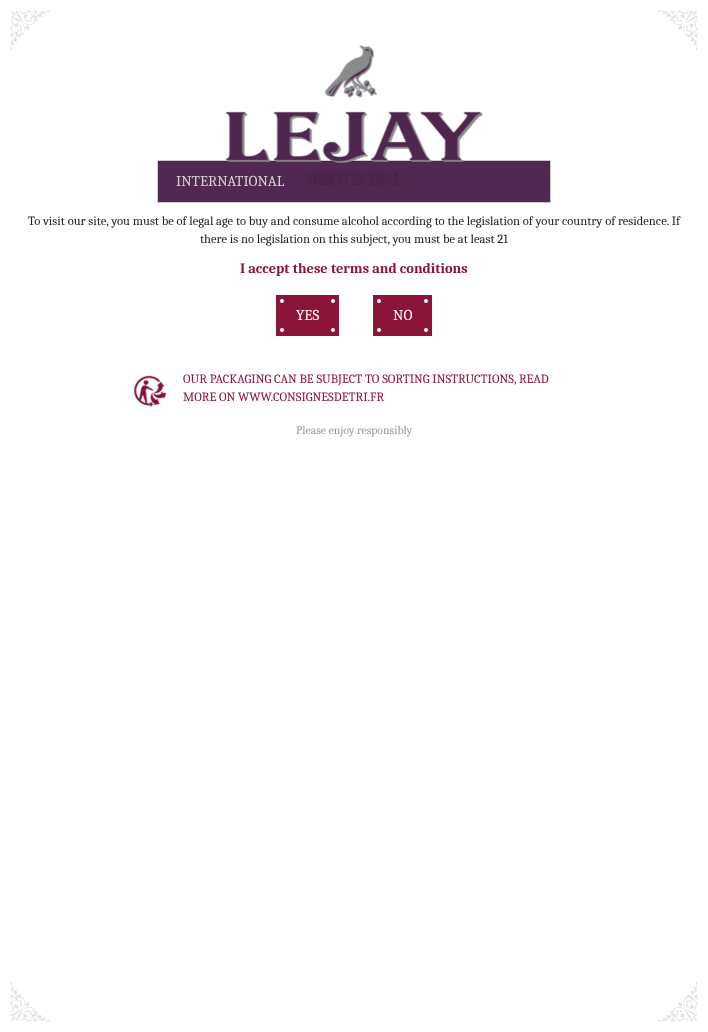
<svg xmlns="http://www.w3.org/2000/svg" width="708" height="1032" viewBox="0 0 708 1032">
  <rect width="100%" height="100%" fill="#fff"/>
  <text x="296" y="434" font-family="Caladea" font-size="11.75" fill="#999">Please enjoy responsibly</text>
  <image x="10" y="10" width="688" height="1012" href="img/1.png"/>
  <path d="M373 295h59v41H373z" fill="#8a1538"/>
  <circle cx="379" cy="301" r="2" fill="#fff"/>
  <circle cx="426" cy="301" r="2" fill="#fff"/>
  <circle cx="379" cy="330" r="2" fill="#fff"/>
  <circle cx="426" cy="330" r="2" fill="#fff"/>
  <text x="393" y="320" font-family="Caladea" font-size="15" fill="#fff">NO</text>
  <path d="M276 295h63v41H276z" fill="#8a1538"/>
  <circle cx="282" cy="301" r="2" fill="#fff"/>
  <circle cx="333" cy="301" r="2" fill="#fff"/>
  <circle cx="282" cy="330" r="2" fill="#fff"/>
  <circle cx="333" cy="330" r="2" fill="#fff"/>
  <text x="296" y="320" font-family="Caladea" font-size="15" fill="#fff">YES</text>
  <text x="240" y="273" font-family="Caladea" font-size="14.4" font-weight="bold" fill="#8a1538">I accept these terms and conditions</text>
  <g font-family="Caladea" font-size="12.6" fill="#222">
    <text x="200" y="243">there is no legislation on this subject, you must be at least 21</text>
    <text x="28" y="225">To visit our site, you must be of legal age to buy and consume alcohol according to the legislation of your country of residence. If</text>
  </g>
  <path d="M158 161h392v1H158z" fill="#4b2549"/>
  <path d="M158 162h392v40H158z" fill="#51284f"/>
  <path d="M157.5 160.5h393v42H157.5z" fill="none" stroke="#ccc"/>
  <image x="225" y="45" width="258" height="140" href="img/2.png"/>
  <text x="176" y="186" font-family="Caladea" font-size="15" fill="#d3d3d3">INTERNATIONAL</text>
  <g font-family="Caladea" font-size="12.6" fill="#8a1538">
    <text x="183" y="401">MORE ON WWW.CONSIGNESDETRI.FR</text>
    <text x="183" y="383">OUR PACKAGING CAN BE SUBJECT TO SORTING INSTRUCTIONS, READ</text>
  </g>
  <image x="133" y="375" width="34" height="32" href="img/3.png"/>
</svg>
